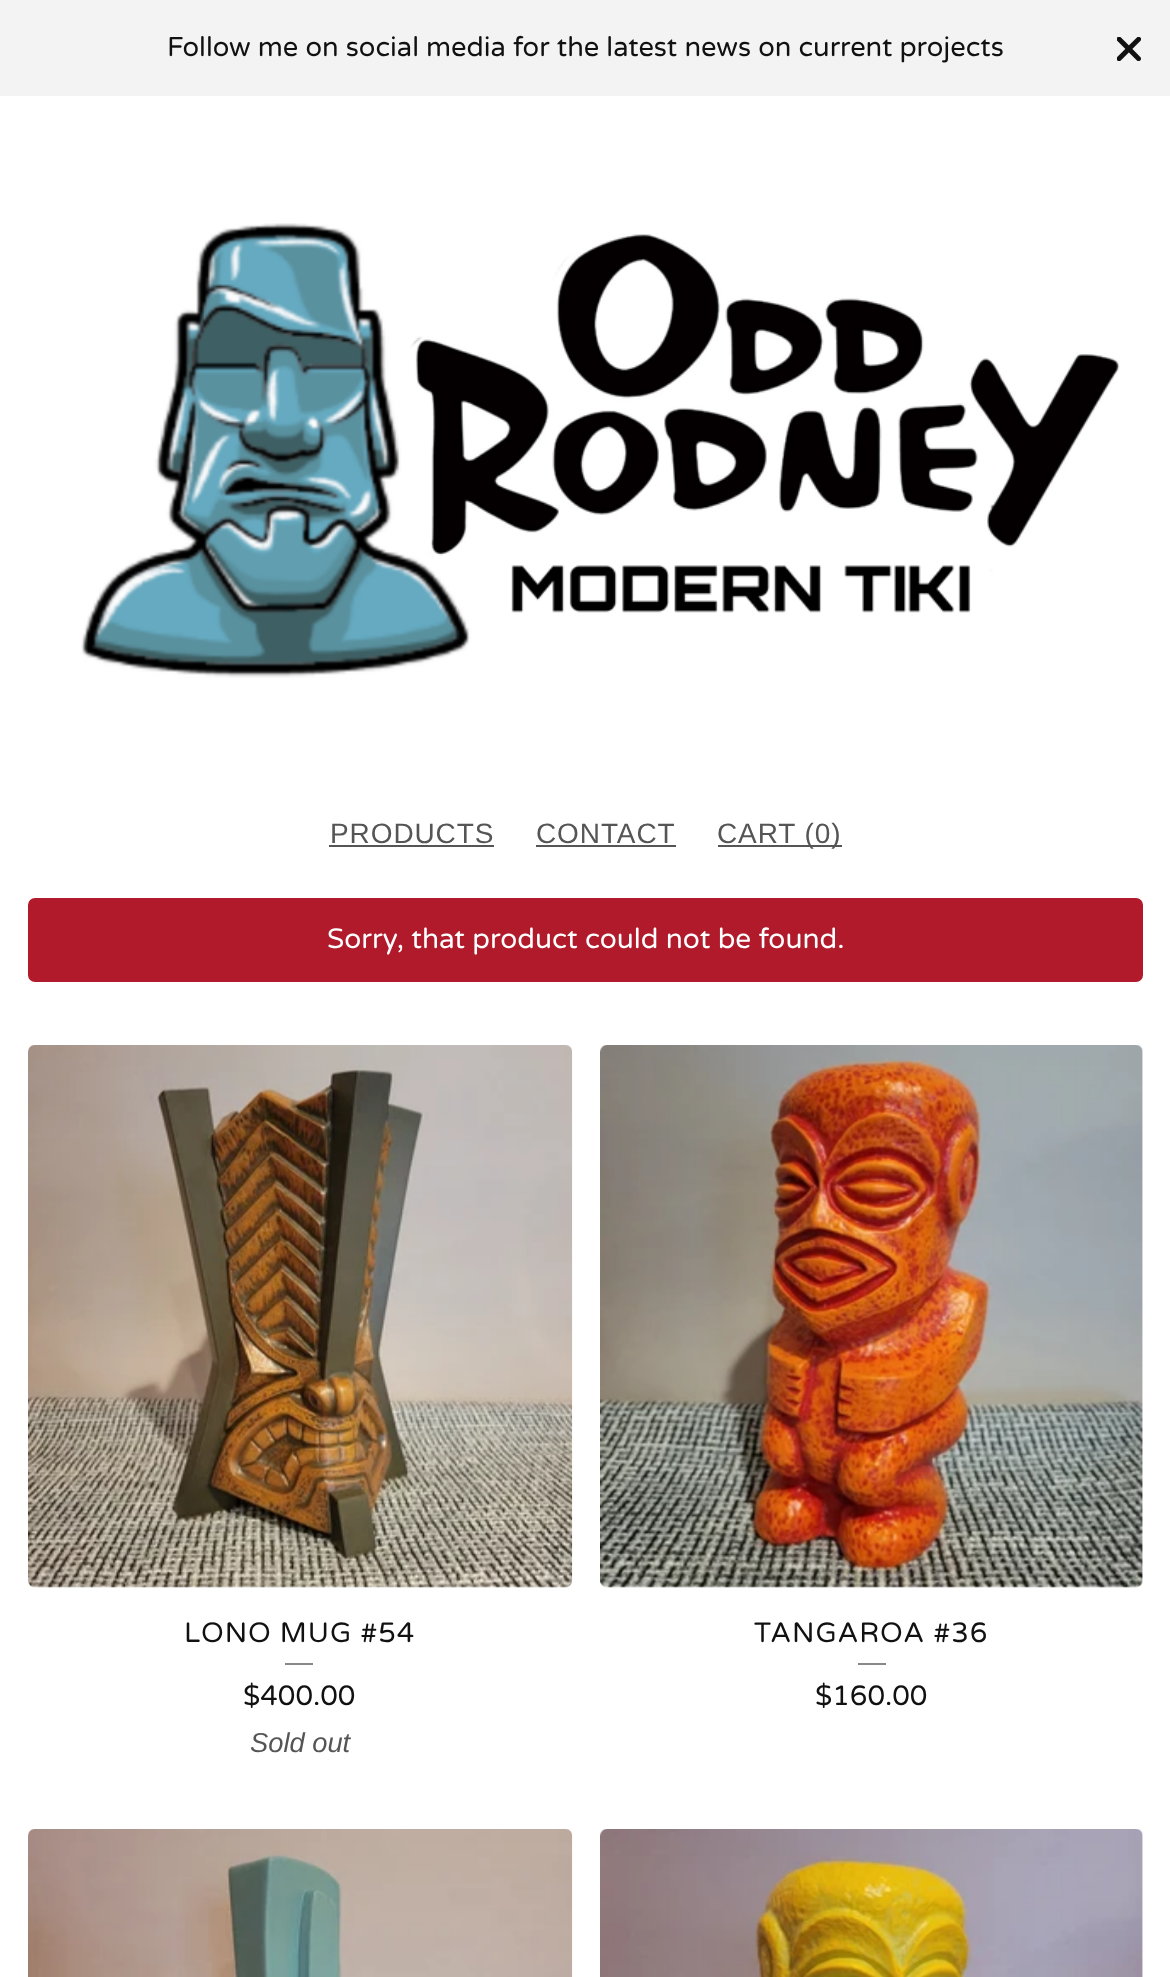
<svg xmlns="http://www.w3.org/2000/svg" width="1170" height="1977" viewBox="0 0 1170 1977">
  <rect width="100%" height="100%" fill="#fff"/>
  <path d="M0 0h1170v96H0z" fill="#f3f3f3"/>
  <image x="1117" y="37" width="24" height="24" href="img/1.png"/>
  <image x="81" y="223" width="1039" height="455" href="img/2.png"/>
  <path d="M329 845h165v2H329z" fill="#555"/>
  <path d="M536 845h140v2H536z" fill="#555"/>
  <path d="M718 845h124v2H718z" fill="#555"/>
  <rect x="28" y="898" width="1115" height="84" rx="7" fill="#b11a2a"/>
  <image x="28" y="1045" width="545" height="543" href="img/3.png"/>
  <path d="M285 1663h28v2H285z" fill="#888"/>
  <image x="600" y="1045" width="543" height="543" href="img/4.png"/>
  <path d="M858 1663h28v2H858z" fill="#888"/>
  <image x="28" y="1829" width="545" height="148" href="img/5.png"/>
  <image x="600" y="1829" width="543" height="148" href="img/6.png"/>
  <text x="167" y="56" font-family="Varela Round" font-size="27.3" fill="#111">Follow me on social media for the latest news on current projects</text>
  <g font-family="Liberation Sans" font-size="28" letter-spacing="0.9" fill="#555">
    <text x="330" y="843">PRODUCTS</text>
    <text x="536" y="843">CONTACT</text>
    <text x="717" y="843">CART (0)</text>
  </g>
  <text x="327" y="948" font-family="Varela Round" font-size="28" fill="#fff">Sorry, that product could not be found.</text>
  <text x="184" y="1642" font-family="Varela Round" font-size="28" letter-spacing="0.9" fill="#111">LONO MUG #54</text>
  <text x="243" y="1705" font-family="Varela Round" font-size="28" fill="#111">$400.00</text>
  <text x="250" y="1752" font-family="Liberation Sans" font-size="27.3" font-style="italic" fill="#555">Sold out</text>
  <text x="754" y="1642" font-family="Varela Round" font-size="28" letter-spacing="0.9" fill="#111">TANGAROA #36</text>
  <text x="815" y="1705" font-family="Varela Round" font-size="28" fill="#111">$160.00</text>
</svg>
